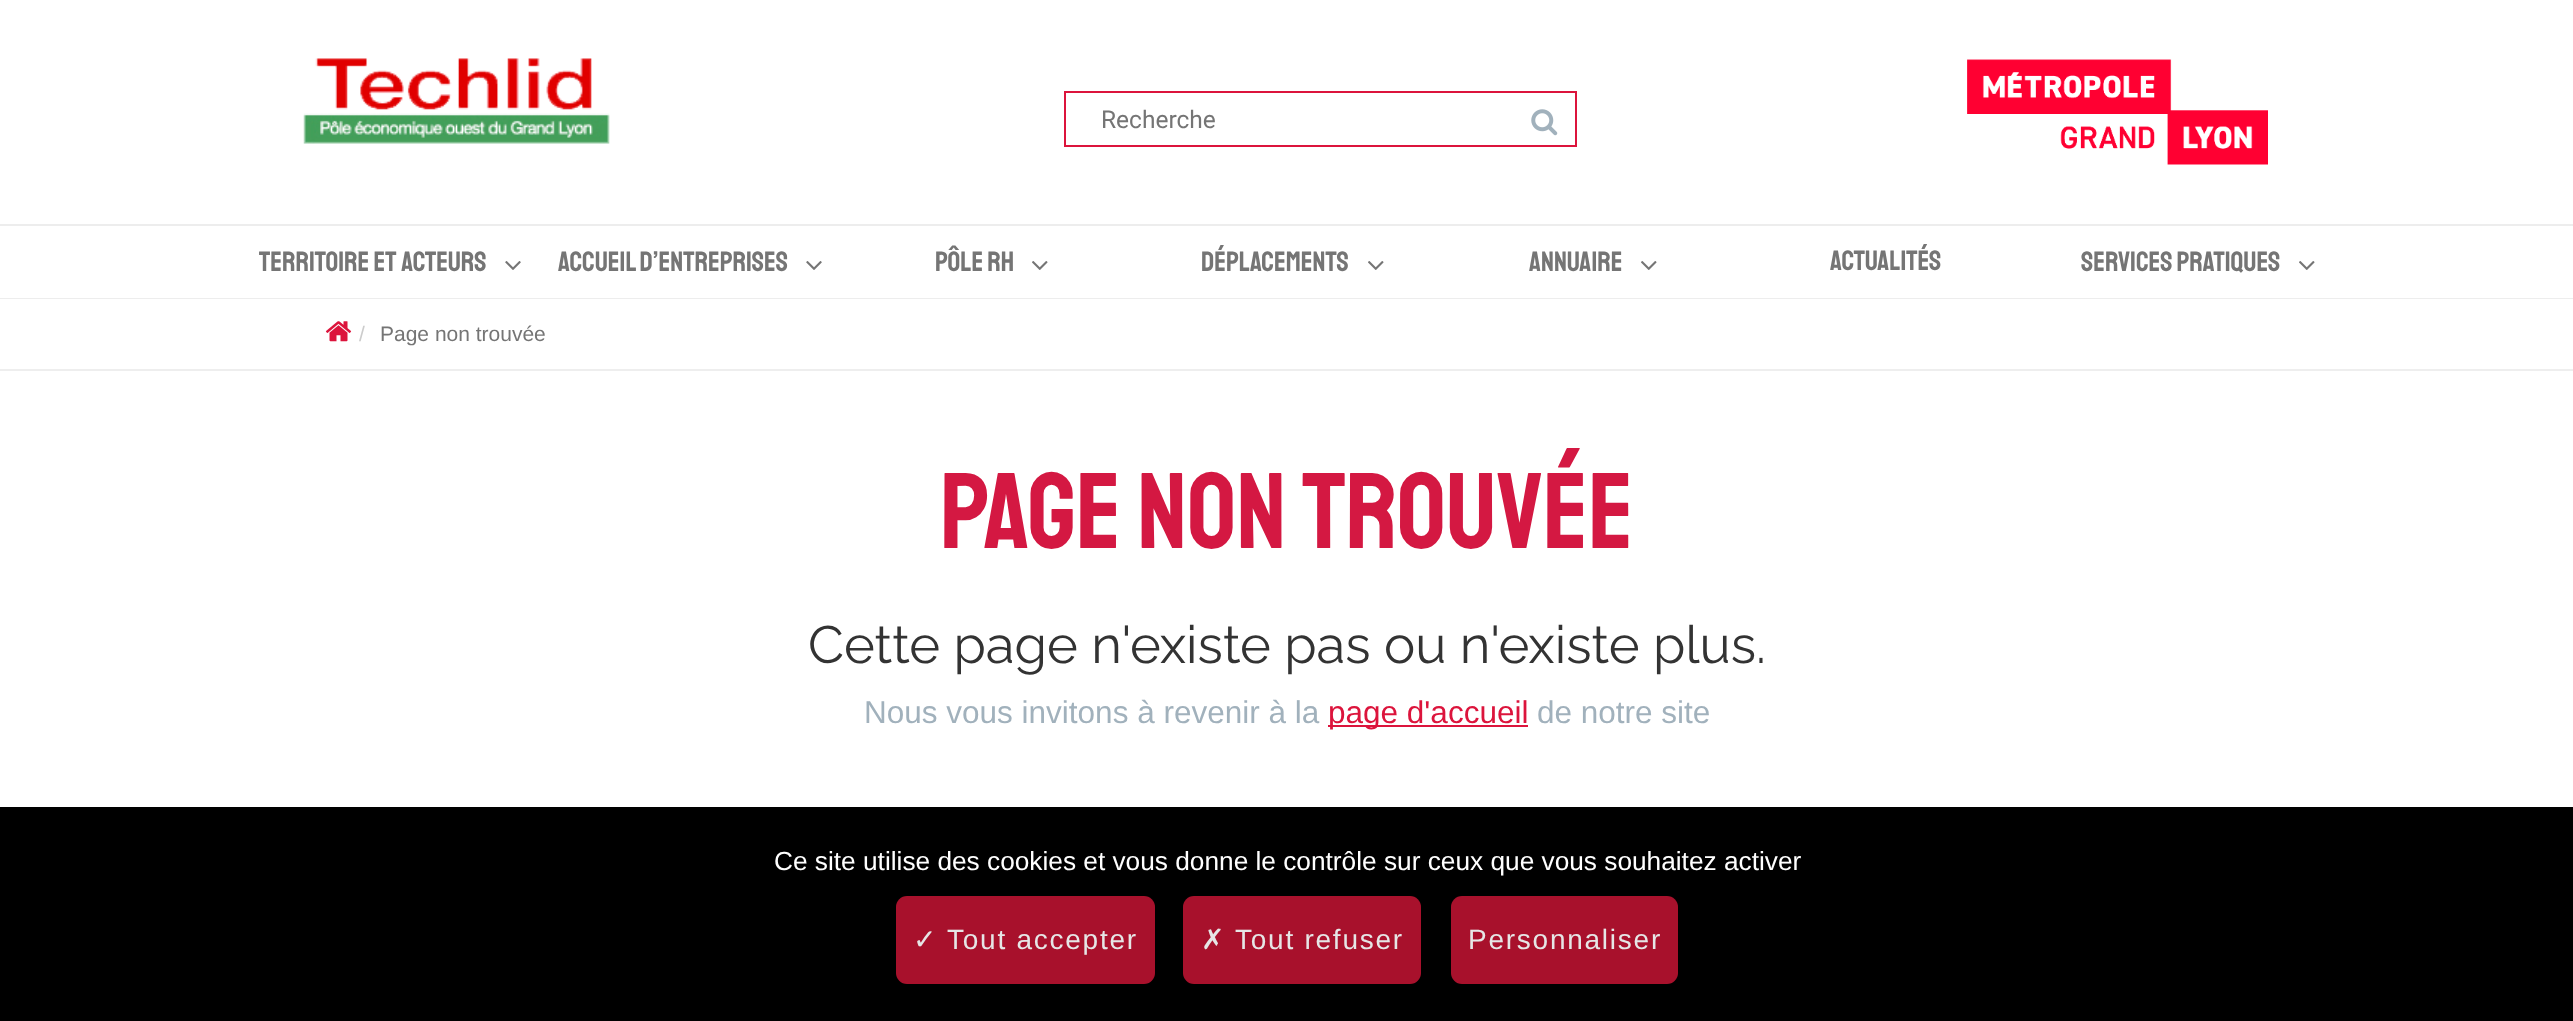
<svg xmlns="http://www.w3.org/2000/svg" width="2573" height="1021" viewBox="0 0 2573 1021">
  <rect width="100%" height="100%" fill="#fff"/>
  <image x="303" y="58" width="307" height="86" href="img/1.png"/>
  <path d="M1065 92h511v54H1065z" fill="none" stroke="#dc143c" stroke-width="2"/>
  <image x="1531" y="109" width="27" height="27" href="img/2.png"/>
  <image x="1967" y="59" width="301" height="106" href="img/3.png"/>
  <path d="M0 224h2573v2H0z" fill="#ededed"/>
  <path d="M0 298h2573v1H0z" fill="#ededed"/>
  <image x="505" y="261" width="16" height="9" href="img/4.png"/>
  <image x="806" y="261" width="16" height="9" href="img/4.png"/>
  <image x="1032" y="261" width="16" height="9" href="img/5.png"/>
  <image x="1368" y="261" width="16" height="9" href="img/5.png"/>
  <image x="1641" y="261" width="16" height="9" href="img/5.png"/>
  <image x="2299" y="261" width="16" height="9" href="img/5.png"/>
  <path d="M0 369h2573v2H0z" fill="#eee"/>
  <image x="325" y="321" width="27" height="21" href="img/6.png"/>
  <path d="M1328 725h200v2H1328z" fill="#dc143c"/>
  <path d="M0 807h2573v214H0z" fill="#000"/>
  <rect x="896" y="896" width="259" height="88" rx="11" fill="#a8112c"/>
  <rect x="1183" y="896" width="238" height="88" rx="11" fill="#a8112c"/>
  <rect x="1451" y="896" width="227" height="88" rx="11" fill="#a8112c"/>
  <text x="1101" y="128" font-family="Roboto" font-size="24.5" fill="#757575">Recherche</text>
  <g font-family="Staatliches" font-size="28" fill="#757575">
    <text x="259" y="271">TERRITOIRE ET ACTEURS</text>
    <text x="558" y="271">ACCUEIL D’ENTREPRISES</text>
    <text x="935" y="271">PÔLE RH</text>
    <text x="1201" y="271">DÉPLACEMENTS</text>
    <text x="1529" y="271">ANNUAIRE</text>
    <text x="1830" y="270">ACTUALITÉS</text>
    <text x="2081" y="271">SERVICES PRATIQUES</text>
  </g>
  <text x="359" y="341" font-family="Liberation Sans" font-size="21" fill="#ccc">/</text>
  <text x="380" y="341" font-family="Liberation Sans" font-size="21" fill="#757575">Page non trouvée</text>
  <text x="940" y="548" font-family="Staatliches" font-size="107.75" fill="#d41842">Page non trouvée</text>
  <text x="808" y="663" font-family="Raleway" font-size="52.5" fill="#333">Cette page n'existe pas ou n'existe plus.</text>
  <text x="864" y="723" font-family="Liberation Sans" font-size="31.5" fill="#a1b1bc">Nous vous invitons à revenir à la</text>
  <text x="1328" y="723" font-family="Liberation Sans" font-size="31.5" fill="#dc143c">page d'accueil</text>
  <text x="1537" y="723" font-family="Liberation Sans" font-size="31.5" fill="#a1b1bc">de notre site</text>
  <text x="774" y="870" font-family="Liberation Sans" font-size="26.25" fill="#fff">Ce site utilise des cookies et vous donne le contrôle sur ceux que vous souhaitez activer</text>
  <text x="913" y="949" font-family="DejaVu Sans" font-size="28" letter-spacing="1.75" fill="#e6e6e6">✓</text>
  <text x="947" y="949" font-family="Liberation Sans" font-size="28" letter-spacing="1.75" fill="#e6e6e6">Tout accepter</text>
  <text x="1201" y="949" font-family="DejaVu Sans" font-size="28" letter-spacing="1.75" fill="#e6e6e6">✗</text>
  <g font-family="Liberation Sans" font-size="28" letter-spacing="1.75" fill="#e6e6e6">
    <text x="1235" y="949">Tout refuser</text>
    <text x="1468" y="949">Personnaliser</text>
  </g>
</svg>
